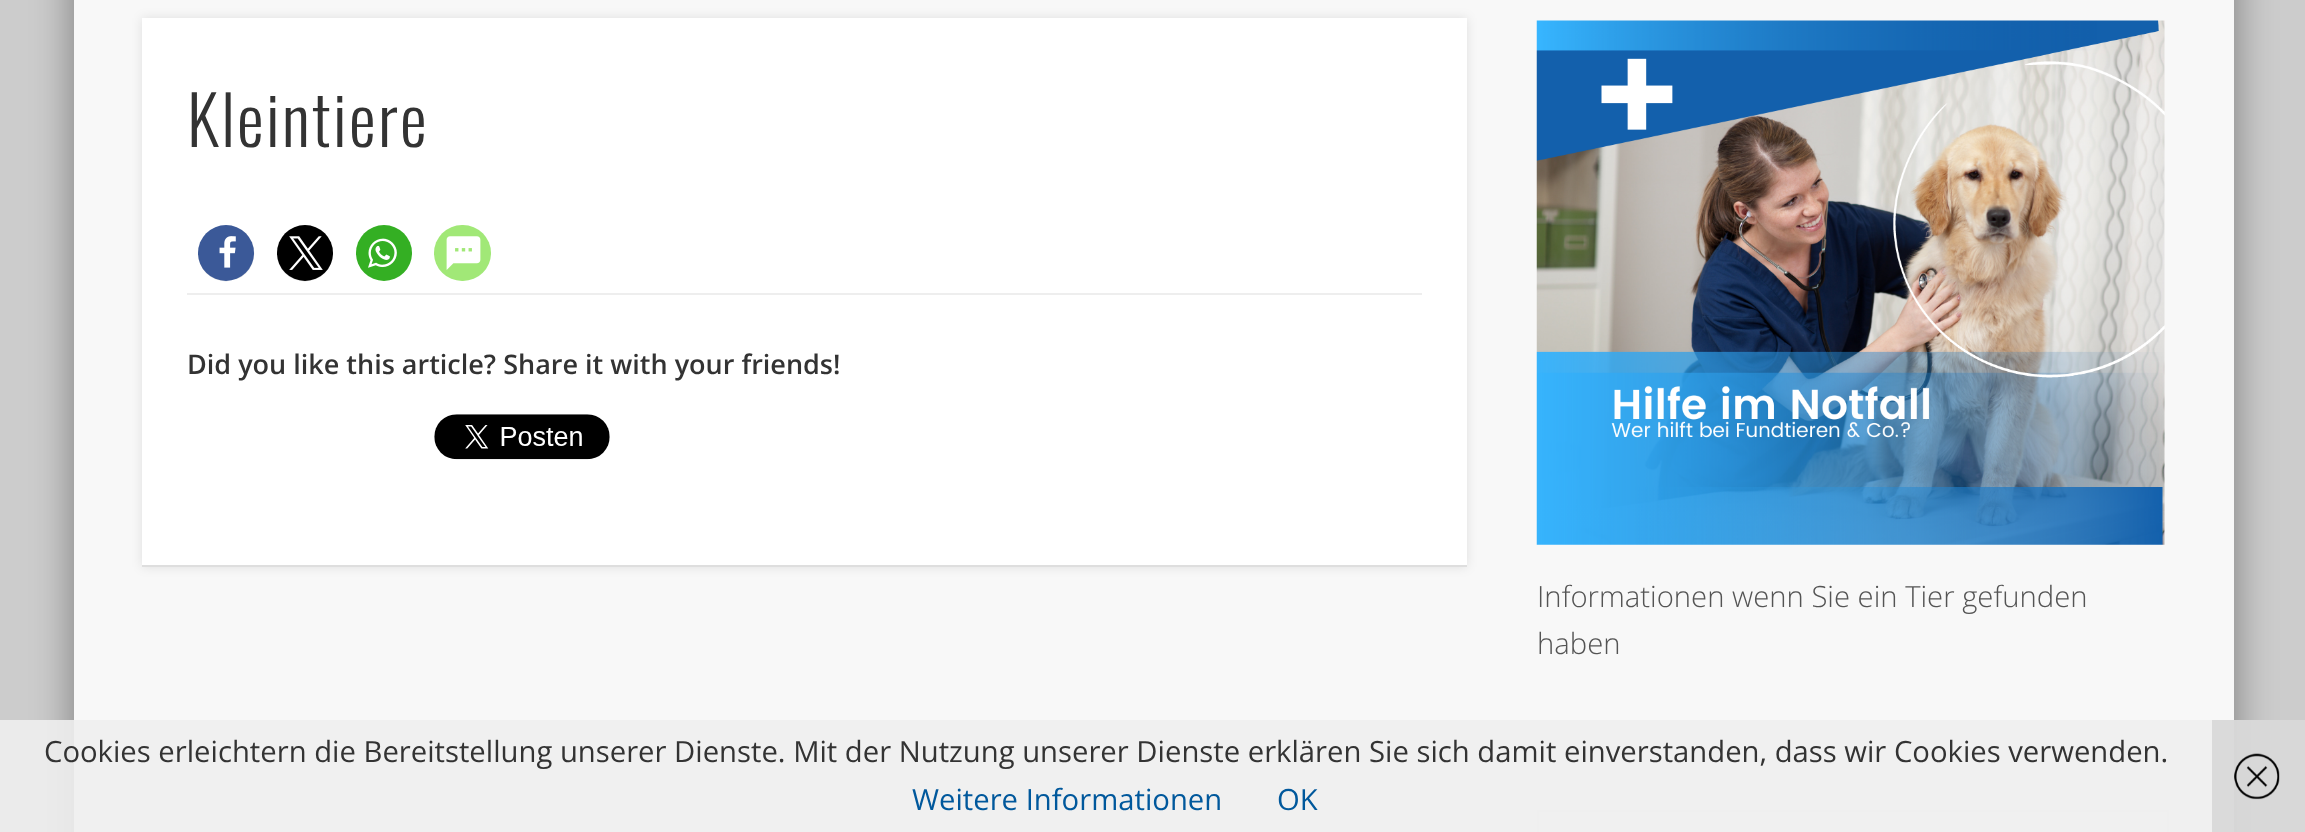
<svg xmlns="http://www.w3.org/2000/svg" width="2305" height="832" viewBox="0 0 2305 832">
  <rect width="100%" height="100%" fill="#ccc"/>
  <path d="M74 -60h2160v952H74z" fill="#00000066" filter="blur(20px)"/>
  <path d="M74 0h2160v832H74z" fill="#f8f8f8"/>
  <path d="M142 18h1325v549H142z" fill="#0000001a" filter="blur(5.5px)"/>
  <path d="M142 18h1325v547H142z" fill="#fff"/>
  <path d="M142 565h1325v2H142z" fill="#dedede"/>
  <image x="198" y="225" width="57" height="57" href="img/1.png"/>
  <circle cx="226" cy="253" r="28" fill="#3b5998"/>
  <image x="219" y="236" width="17" height="32" href="img/2.png"/>
  <image x="277" y="225" width="56" height="57" href="img/3.png"/>
  <circle cx="305" cy="253" r="28" fill="#000"/>
  <image x="289" y="236" width="34" height="34" href="img/4.png"/>
  <circle cx="384" cy="253" r="28" fill="#34af23"/>
  <image x="368" y="238" width="29" height="30" href="img/5.png"/>
  <rect x="434" y="225" width="57" height="56" rx="28" fill="#a1e877"/>
  <image x="446" y="236" width="35" height="34" href="img/6.png"/>
  <path d="M187 293h1235v2H187z" fill="#eee"/>
  <image x="434" y="414" width="176" height="46" href="img/7.png"/>
  <image x="1536" y="20" width="629" height="525" href="img/8.png"/>
  <path d="M1538 811h630v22H1538z" fill="#fcfcfc" stroke="#eee" stroke-width="2"/>
  <path d="M0 720h2305v112H0z" fill="#eeeeeee6"/>
  <path d="M2212 720h93v112H2212z" fill="#cccccc99"/>
  <image x="2234" y="753" width="46" height="47" href="img/9.png"/>
  <text x="187" y="147" font-family="Oswald" font-size="67.5" font-weight="300" letter-spacing="2.25" fill="#333">Kleintiere</text>
  <text x="187" y="374" font-family="Open Sans" font-size="27" font-weight="600" fill="#333">Did you like this article? Share it with your friends!</text>
  <g font-family="Open Sans" font-size="29.25" font-weight="300" fill="#545454">
    <text x="1537" y="607">Informationen wenn Sie ein Tier gefunden</text>
    <text x="1537" y="654">haben</text>
  </g>
  <text x="44" y="762" font-family="Open Sans" font-size="29.25" fill="#333">Cookies erleichtern die Bereitstellung unserer Dienste. Mit der Nutzung unserer Dienste erklären Sie sich damit einverstanden, dass wir Cookies verwenden.</text>
  <g font-family="Open Sans" font-size="29.25" fill="#00589c">
    <text x="912" y="810">Weitere Informationen</text>
    <text x="1277" y="810">OK</text>
  </g>
</svg>
